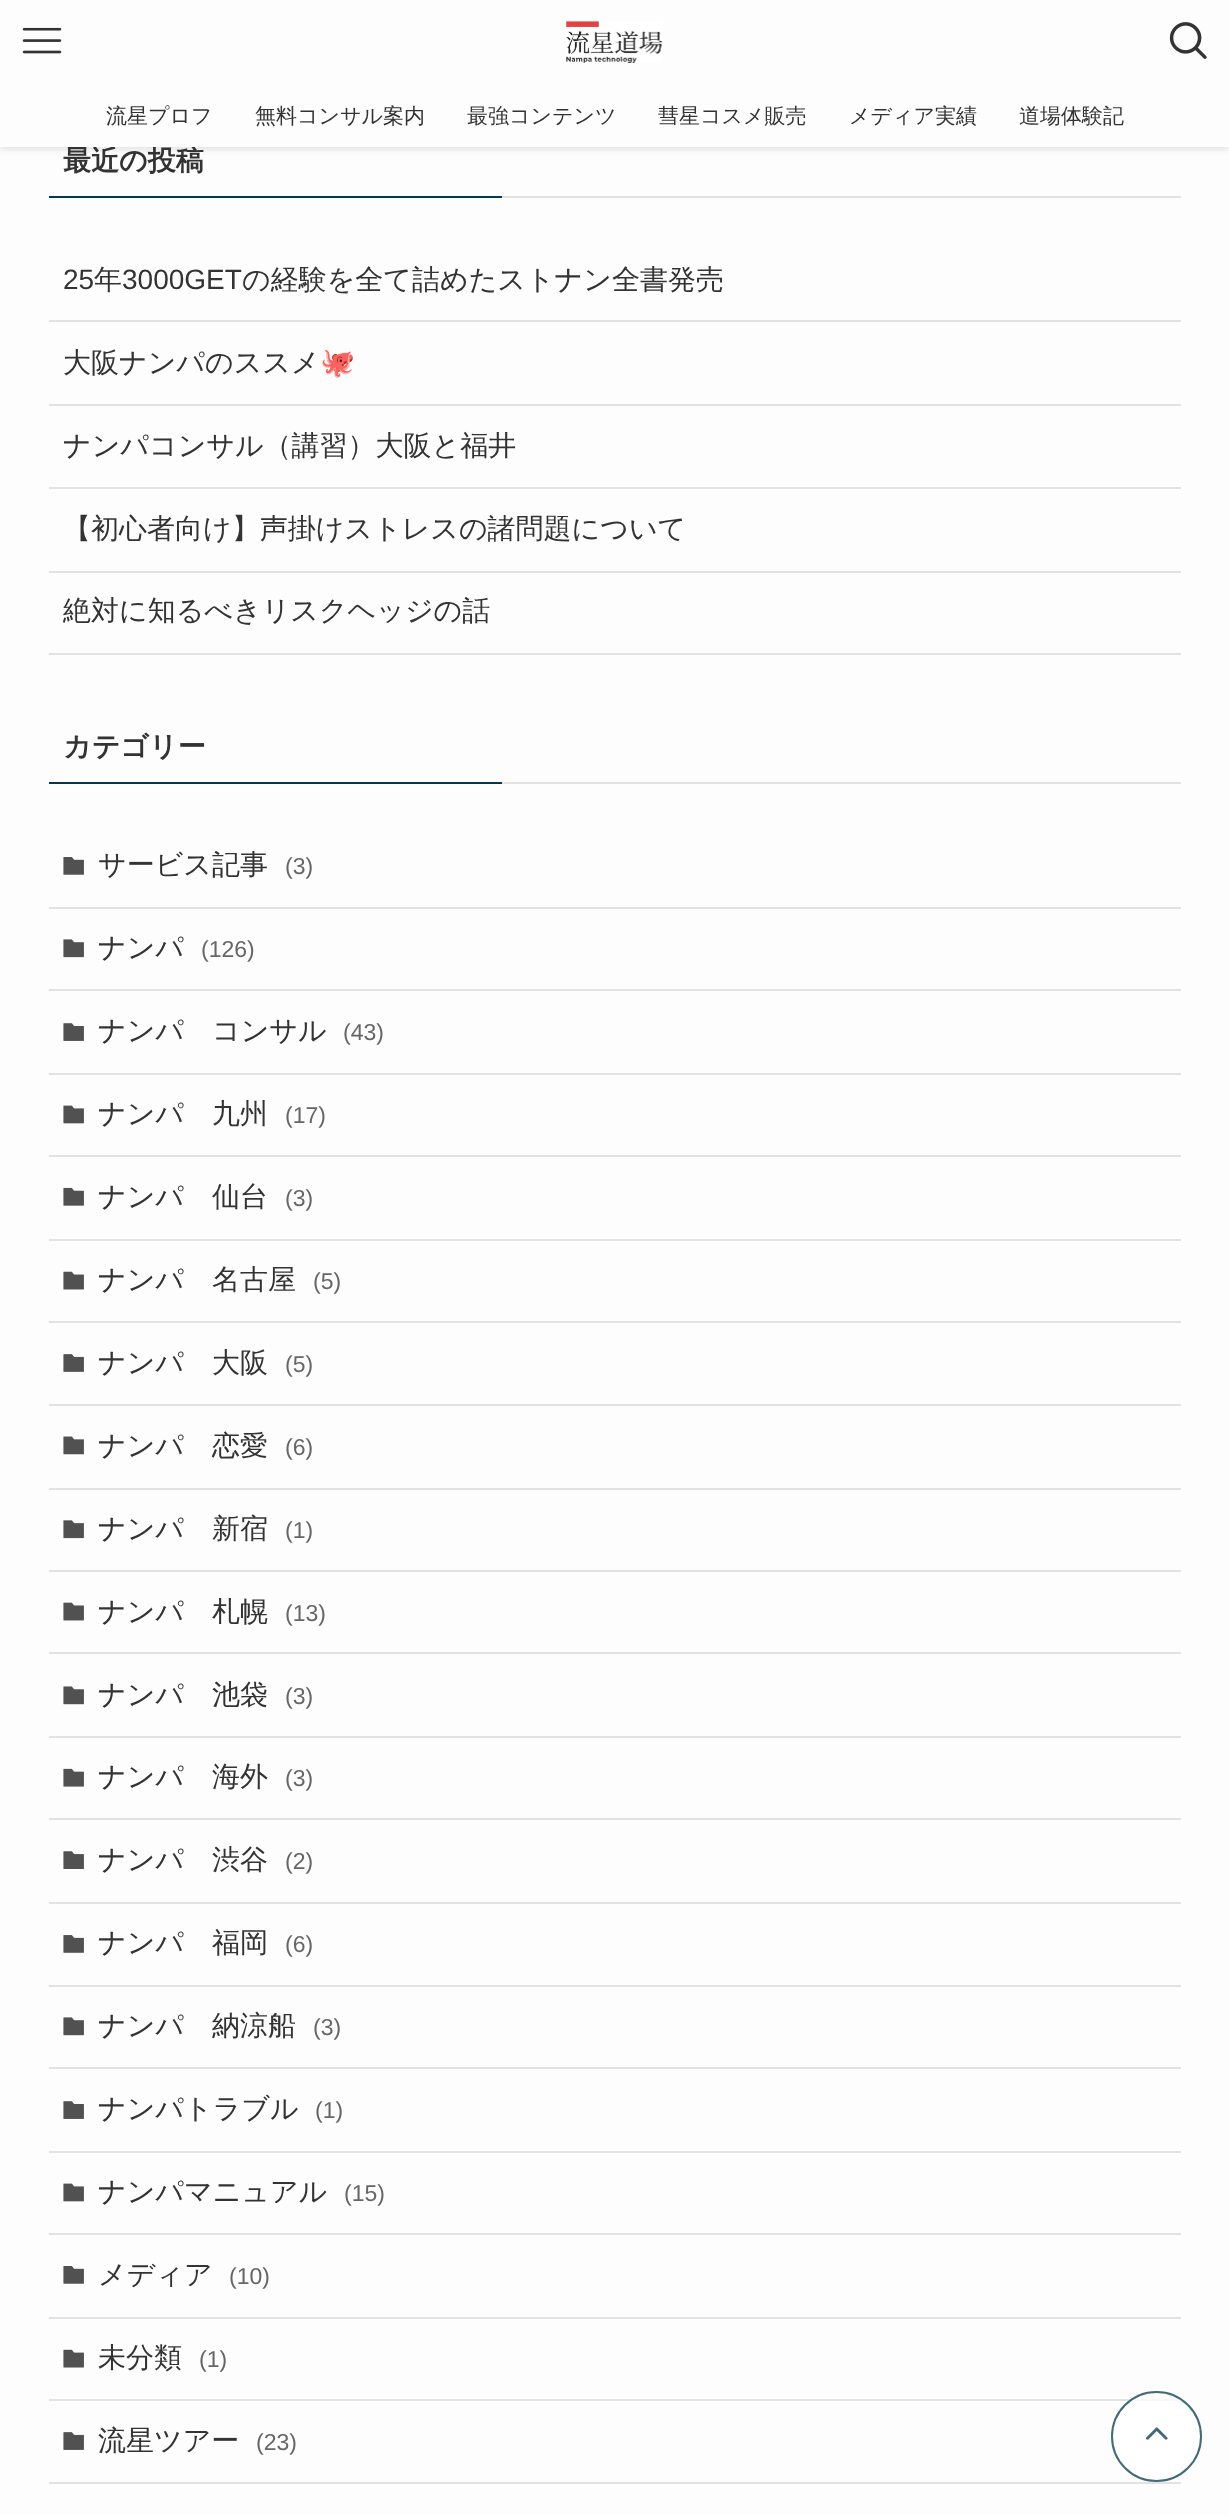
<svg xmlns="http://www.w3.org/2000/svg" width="1229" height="2515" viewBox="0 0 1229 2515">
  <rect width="100%" height="100%" fill="#fdfdfd"/>
  <path d="M0 2h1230v147H0z" fill="#0000001f" filter="blur(3.5px)"/>
  <path d="M49 196h453v2H49z" fill="#04384c"/>
  <path d="M502 196h679v2H502z" fill="#e2e2e2"/>
  <path d="M49 320h1132v2H49z" fill="#e2e2e2"/>
  <path d="M49 404h1132v2H49z" fill="#e2e2e2"/>
  <path d="M49 487h1132v2H49z" fill="#e2e2e2"/>
  <path d="M49 571h1132v2H49z" fill="#e2e2e2"/>
  <path d="M49 653h1132v2H49z" fill="#e2e2e2"/>
  <path d="M49 782h453v2H49z" fill="#04384c"/>
  <path d="M502 782h679v2H502z" fill="#e2e2e2"/>
  <path d="M49 907h1132v2H49z" fill="#e2e2e2"/>
  <image x="63" y="857" width="21" height="18" href="img/4.png"/>
  <path d="M49 989h1132v2H49z" fill="#e2e2e2"/>
  <image x="63" y="939" width="21" height="19" href="img/5.png"/>
  <path d="M49 1073h1132v2H49z" fill="#e2e2e2"/>
  <image x="63" y="1023" width="21" height="18" href="img/6.png"/>
  <path d="M49 1155h1132v2H49z" fill="#e2e2e2"/>
  <image x="63" y="1105" width="21" height="19" href="img/7.png"/>
  <path d="M49 1239h1132v2H49z" fill="#e2e2e2"/>
  <image x="63" y="1187" width="21" height="19" href="img/8.png"/>
  <path d="M49 1321h1132v2H49z" fill="#e2e2e2"/>
  <image x="63" y="1271" width="21" height="19" href="img/9.png"/>
  <path d="M49 1404h1132v2H49z" fill="#e2e2e2"/>
  <image x="63" y="1354" width="21" height="18" href="img/10.png"/>
  <path d="M49 1488h1132v2H49z" fill="#e2e2e2"/>
  <image x="63" y="1436" width="21" height="19" href="img/11.png"/>
  <path d="M49 1570h1132v2H49z" fill="#e2e2e2"/>
  <image x="63" y="1520" width="21" height="19" href="img/12.png"/>
  <path d="M49 1652h1132v2H49z" fill="#e2e2e2"/>
  <image x="63" y="1602" width="21" height="19" href="img/13.png"/>
  <path d="M49 1736h1132v2H49z" fill="#e2e2e2"/>
  <image x="63" y="1686" width="21" height="19" href="img/14.png"/>
  <path d="M49 1818h1132v2H49z" fill="#e2e2e2"/>
  <image x="63" y="1768" width="21" height="19" href="img/15.png"/>
  <path d="M49 1902h1132v2H49z" fill="#e2e2e2"/>
  <image x="63" y="1851" width="21" height="18" href="img/16.png"/>
  <path d="M49 1985h1132v2H49z" fill="#e2e2e2"/>
  <image x="63" y="1935" width="21" height="18" href="img/17.png"/>
  <path d="M49 2067h1132v2H49z" fill="#e2e2e2"/>
  <image x="63" y="2017" width="21" height="19" href="img/18.png"/>
  <path d="M49 2151h1132v2H49z" fill="#e2e2e2"/>
  <image x="63" y="2101" width="21" height="18" href="img/19.png"/>
  <path d="M49 2233h1132v2H49z" fill="#e2e2e2"/>
  <image x="63" y="2183" width="21" height="19" href="img/20.png"/>
  <path d="M49 2317h1132v2H49z" fill="#e2e2e2"/>
  <image x="63" y="2266" width="21" height="18" href="img/21.png"/>
  <path d="M49 2399h1132v2H49z" fill="#e2e2e2"/>
  <image x="63" y="2349" width="21" height="19" href="img/22.png"/>
  <path d="M49 2482h1132v2H49z" fill="#e2e2e2"/>
  <image x="63" y="2432" width="21" height="18" href="img/23.png"/>
  <circle cx="1156.5" cy="2436.5" r="45.5" fill="#ffffffbf"/>
  <circle cx="1156.5" cy="2436.5" r="44.5" fill="none" stroke="#04384cbf" stroke-width="2"/>
  <image x="1146" y="2427" width="22" height="13" href="img/24.png"/>
  <text x="63" y="170" font-family="WenQuanYi Zen Hei" font-size="28" font-weight="bold" fill="#333">最近の投稿</text>
  <path d="M0 0h1229v147H0z" fill="#fdfdfd"/>
  <image x="22" y="27" width="40" height="27" href="img/1.png"/>
  <image x="1169" y="22" width="38" height="37" href="img/3.png"/>
  <image x="566" y="21" width="97" height="42" href="img/2.png"/>
  <g font-family="WenQuanYi Zen Hei" font-size="21" font-weight="500" fill="#333">
    <text x="1019" y="123">道場体験記</text>
    <text x="849" y="123">メディア実績</text>
    <text x="658" y="123">彗星コスメ販売</text>
    <text x="467" y="123">最強コンテンツ</text>
    <text x="255" y="123">無料コンサル案内</text>
    <text x="106" y="123">流星プロフ</text>
  </g>
  <text x="63" y="289" font-family="Liberation Sans" font-size="28" fill="#333">25</text>
  <text x="94" y="289" font-family="WenQuanYi Zen Hei" font-size="28" font-weight="500" fill="#333">年</text>
  <text x="122" y="289" font-family="Liberation Sans" font-size="28" fill="#333">3000GET</text>
  <g font-family="WenQuanYi Zen Hei" font-size="28" font-weight="500" fill="#333">
    <text x="242" y="289">の経験を全て詰めたストナン全書発売</text>
    <text x="63" y="372">大阪ナンパのススメ</text>
  </g>
  <text x="320" y="372" font-family="Noto Color Emoji" font-size="28" fill="#333">🐙</text>
  <g font-family="WenQuanYi Zen Hei" font-size="28" font-weight="500" fill="#333">
    <text x="63" y="455">ナンパコンサル（講習）大阪と福井</text>
    <text x="63" y="538">【初心者向け】声掛けストレスの諸問題について</text>
    <text x="63" y="620">絶対に知るべきリスクヘッジの話</text>
  </g>
  <text x="63" y="756" font-family="WenQuanYi Zen Hei" font-size="28" font-weight="bold" fill="#333">カテゴリー</text>
  <text x="98" y="874" font-family="WenQuanYi Zen Hei" font-size="28" font-weight="500" fill="#333">サービス記事</text>
  <text x="285" y="874" font-family="Liberation Sans" font-size="23" fill="#666">(3)</text>
  <text x="98" y="957" font-family="WenQuanYi Zen Hei" font-size="28" font-weight="500" fill="#333">ナンパ</text>
  <text x="201" y="957" font-family="Liberation Sans" font-size="23" fill="#666">(126)</text>
  <text x="98" y="1040" font-family="WenQuanYi Zen Hei" font-size="28" font-weight="500" fill="#333">ナンパ　コンサル</text>
  <text x="343" y="1040" font-family="Liberation Sans" font-size="23" fill="#666">(43)</text>
  <text x="98" y="1123" font-family="WenQuanYi Zen Hei" font-size="28" font-weight="500" fill="#333">ナンパ　九州</text>
  <text x="285" y="1123" font-family="Liberation Sans" font-size="23" fill="#666">(17)</text>
  <text x="98" y="1206" font-family="WenQuanYi Zen Hei" font-size="28" font-weight="500" fill="#333">ナンパ　仙台</text>
  <text x="285" y="1206" font-family="Liberation Sans" font-size="23" fill="#666">(3)</text>
  <text x="98" y="1289" font-family="WenQuanYi Zen Hei" font-size="28" font-weight="500" fill="#333">ナンパ　名古屋</text>
  <text x="313" y="1289" font-family="Liberation Sans" font-size="23" fill="#666">(5)</text>
  <text x="98" y="1372" font-family="WenQuanYi Zen Hei" font-size="28" font-weight="500" fill="#333">ナンパ　大阪</text>
  <text x="285" y="1372" font-family="Liberation Sans" font-size="23" fill="#666">(5)</text>
  <text x="98" y="1455" font-family="WenQuanYi Zen Hei" font-size="28" font-weight="500" fill="#333">ナンパ　恋愛</text>
  <text x="285" y="1455" font-family="Liberation Sans" font-size="23" fill="#666">(6)</text>
  <text x="98" y="1538" font-family="WenQuanYi Zen Hei" font-size="28" font-weight="500" fill="#333">ナンパ　新宿</text>
  <text x="285" y="1538" font-family="Liberation Sans" font-size="23" fill="#666">(1)</text>
  <text x="98" y="1621" font-family="WenQuanYi Zen Hei" font-size="28" font-weight="500" fill="#333">ナンパ　札幌</text>
  <text x="285" y="1621" font-family="Liberation Sans" font-size="23" fill="#666">(13)</text>
  <text x="98" y="1704" font-family="WenQuanYi Zen Hei" font-size="28" font-weight="500" fill="#333">ナンパ　池袋</text>
  <text x="285" y="1704" font-family="Liberation Sans" font-size="23" fill="#666">(3)</text>
  <text x="98" y="1786" font-family="WenQuanYi Zen Hei" font-size="28" font-weight="500" fill="#333">ナンパ　海外</text>
  <text x="285" y="1786" font-family="Liberation Sans" font-size="23" fill="#666">(3)</text>
  <text x="98" y="1869" font-family="WenQuanYi Zen Hei" font-size="28" font-weight="500" fill="#333">ナンパ　渋谷</text>
  <text x="285" y="1869" font-family="Liberation Sans" font-size="23" fill="#666">(2)</text>
  <text x="98" y="1952" font-family="WenQuanYi Zen Hei" font-size="28" font-weight="500" fill="#333">ナンパ　福岡</text>
  <text x="285" y="1952" font-family="Liberation Sans" font-size="23" fill="#666">(6)</text>
  <text x="98" y="2035" font-family="WenQuanYi Zen Hei" font-size="28" font-weight="500" fill="#333">ナンパ　納涼船</text>
  <text x="313" y="2035" font-family="Liberation Sans" font-size="23" fill="#666">(3)</text>
  <text x="98" y="2118" font-family="WenQuanYi Zen Hei" font-size="28" font-weight="500" fill="#333">ナンパトラブル</text>
  <text x="315" y="2118" font-family="Liberation Sans" font-size="23" fill="#666">(1)</text>
  <text x="98" y="2201" font-family="WenQuanYi Zen Hei" font-size="28" font-weight="500" fill="#333">ナンパマニュアル</text>
  <text x="344" y="2201" font-family="Liberation Sans" font-size="23" fill="#666">(15)</text>
  <text x="98" y="2284" font-family="WenQuanYi Zen Hei" font-size="28" font-weight="500" fill="#333">メディア</text>
  <text x="229" y="2284" font-family="Liberation Sans" font-size="23" fill="#666">(10)</text>
  <text x="98" y="2367" font-family="WenQuanYi Zen Hei" font-size="28" font-weight="500" fill="#333">未分類</text>
  <text x="199" y="2367" font-family="Liberation Sans" font-size="23" fill="#666">(1)</text>
  <text x="98" y="2450" font-family="WenQuanYi Zen Hei" font-size="28" font-weight="500" fill="#333">流星ツアー</text>
  <text x="256" y="2450" font-family="Liberation Sans" font-size="23" fill="#666">(23)</text>
</svg>
